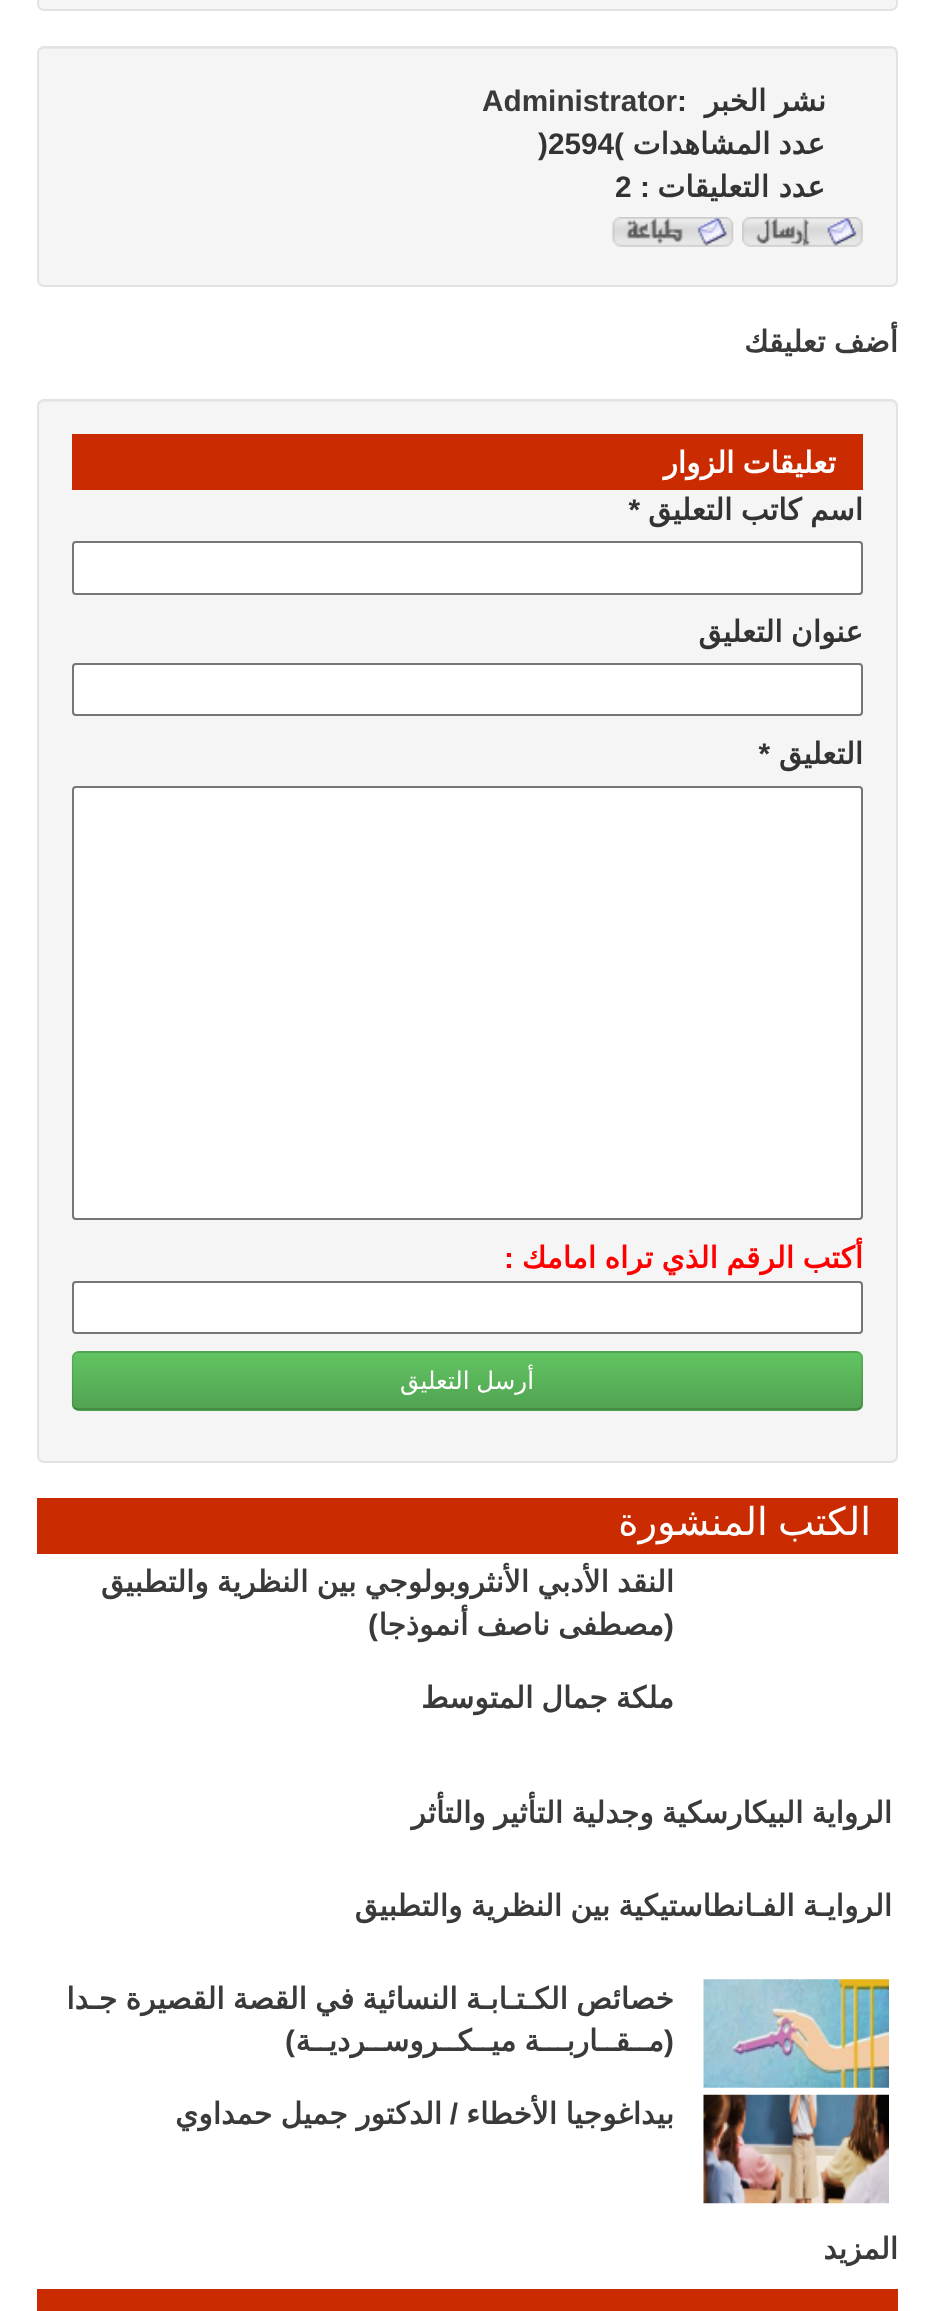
<svg xmlns="http://www.w3.org/2000/svg" width="933" height="2311" viewBox="0 0 933 2311">
  <defs>
    <clipPath id="clip1"><rect x="72" y="1351" width="791" height="60" rx="7"/></clipPath>
    <linearGradient id="g1" gradientUnits="userSpaceOnUse" x1="467" y1="1353" x2="467" y2="1409"><stop offset="0" stop-color="#62c462"/><stop offset="1" stop-color="#51a351"/></linearGradient>
    <clipPath id="clip2"><path d="M42 1559h632v84H42z"/></clipPath>
    <clipPath id="clip3"><path d="M42 1790h851v84H42z"/></clipPath>
    <clipPath id="clip4"><path d="M42 1883h851v84H42z"/></clipPath>
    <clipPath id="clip5"><path d="M42 1976h632v84H42z"/></clipPath>
  </defs>
  <rect width="100%" height="100%" fill="#fff"/>
  <rect x="38" y="-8" width="859" height="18" rx="6" fill="#f5f5f5" stroke="#e3e3e3" stroke-width="2"/>
  <rect x="37" y="46" width="861" height="241" rx="7" fill="#f5f5f5"/>
  <path d="M44 49H891C894 49 896 51 896 54V52C896 49 894 47 891 47H44C42 47 39 49 39 51C40 50 42 49 44 49Z" fill="#e9e9e9"/>
  <rect x="38" y="47" width="859" height="239" rx="6" fill="none" stroke="#e3e3e3" stroke-width="2"/>
  <image x="742" y="217" width="121" height="30" href="img/1.png"/>
  <image x="612" y="217" width="122" height="30" href="img/2.png"/>
  <rect x="37" y="399" width="861" height="1064" rx="7" fill="#f5f5f5"/>
  <path d="M44 402H891C894 402 896 405 896 408V406C896 403 894 401 891 401H44C42 401 40 403 39 405C40 403 42 402 44 402Z" fill="#e9e9e9"/>
  <rect x="38" y="400" width="859" height="1062" rx="6" fill="none" stroke="#e3e3e3" stroke-width="2"/>
  <path d="M72 434h791v56H72z" fill="#ca2b01"/>
  <rect x="73" y="542" width="789" height="52" rx="3" fill="#fff" stroke="#767676" stroke-width="2"/>
  <rect x="73" y="664" width="789" height="51" rx="3" fill="#fff" stroke="#767676" stroke-width="2"/>
  <rect x="73" y="787" width="789" height="432" rx="3" fill="#fff" stroke="#767676" stroke-width="2"/>
  <rect x="73" y="1282" width="789" height="51" rx="3" fill="#fff" stroke="#767676" stroke-width="2"/>
  <rect x="72" y="1351" width="791" height="60" rx="7" fill="#5bb75b"/>
  <g clip-path="url(#clip1)">
    <path d="M72 1353h791v56H72z" fill="url(#g1)"/>
  </g>
  <path d="M860 1408C859 1409 857.5 1409.5 856 1409.5H79C77 1409.5 75.5 1409 74.5 1408" fill="none" stroke="#00000040" stroke-width="1.8"/>
  <path d="M74.5 1408C73.5 1406.5 72.5 1405 72.5 1403.5V1358C72.5 1356.5 73.5 1355 74.5 1353.5C75.5 1352.5 77 1352 79 1352H856C857.5 1352 859 1352.5 860 1353.5C861 1355 862 1356.5 862 1358V1403.5C862 1405 861 1406.5 860 1408" fill="none" stroke="#0000001a" stroke-width="1.8"/>
  <path d="M37 1498h861v56H37z" fill="#ca2b01"/>
  <image x="703" y="1979" width="186" height="109" href="img/3.png"/>
  <image x="703" y="2094" width="186" height="110" href="img/4.png"/>
  <path d="M37 2289h861v22H37z" fill="#ca2b01"/>
  <text x="826" y="111" word-spacing="-1" font-family="DejaVu Sans" font-size="29.75" font-weight="bold" direction="rtl" fill="#333">نشر الخبر</text>
  <text x="677" y="111" font-family="Liberation Sans" font-size="29.75" font-weight="bold" fill="#333">:</text>
  <text x="482" y="111" font-family="Liberation Sans" font-size="29.75" font-weight="bold" fill="#3a3a3a">Administrator</text>
  <text x="825" y="154" word-spacing="-1.25" font-family="DejaVu Sans" font-size="29.75" font-weight="bold" direction="rtl" fill="#333">عدد المشاهدات</text>
  <text x="538" y="154" font-family="Liberation Sans" font-size="29.75" font-weight="bold" fill="#333">)2594(</text>
  <text x="825" y="197" font-family="DejaVu Sans" font-size="29.75" font-weight="bold" direction="rtl" fill="#333">عدد التعليقات</text>
  <text x="650" y="197" font-family="Liberation Sans" font-size="29.75" font-weight="bold" direction="rtl" fill="#333">:</text>
  <text x="615" y="197" font-family="Liberation Sans" font-size="29.75" font-weight="bold" fill="#333">2</text>
  <text x="898" y="352" word-spacing="-1.25" font-family="DejaVu Sans" font-size="29.75" font-weight="bold" direction="rtl" fill="#3a3a3a">أضف تعليقك</text>
  <text x="836" y="473" word-spacing="-1.25" font-family="DejaVu Sans" font-size="29.75" font-weight="bold" direction="rtl" fill="#fff">تعليقات الزوار</text>
  <text x="863" y="520" word-spacing="-1" font-family="DejaVu Sans" font-size="29.75" font-weight="bold" direction="rtl" fill="#333">اسم كاتب التعليق</text>
  <text x="640" y="520" font-family="Liberation Sans" font-size="29.75" font-weight="bold" direction="rtl" fill="#333">*</text>
  <g font-family="DejaVu Sans" font-size="29.75" font-weight="bold" direction="rtl" fill="#333">
    <text x="863" y="642" word-spacing="-1.25">عنوان التعليق</text>
    <text x="863" y="764">التعليق</text>
  </g>
  <text x="770" y="764" font-family="Liberation Sans" font-size="29.75" font-weight="bold" direction="rtl" fill="#333">*</text>
  <text x="863" y="1268" word-spacing="-1" font-family="DejaVu Sans" font-size="29.75" font-weight="bold" direction="rtl" fill="#f00">أكتب الرقم الذي تراه امامك</text>
  <text x="514" y="1268" font-family="Liberation Sans" font-size="29.75" font-weight="bold" direction="rtl" fill="#f00">:</text>
  <text x="534" y="1389" word-spacing="-1" font-family="DejaVu Sans" font-size="24.5" direction="rtl" fill="#fff">أرسل التعليق</text>
  <text x="871" y="1535" word-spacing="-2" font-family="DejaVu Sans" font-size="38.5" direction="rtl" fill="#fff">الكتب المنشورة</text>
  <g clip-path="url(#clip2)">
    <text x="674" y="1592" word-spacing="-1.25" font-family="DejaVu Sans" font-size="29.75" font-weight="bold" direction="rtl" fill="#3a3a3a">النقد الأدبي الأنثروبولوجي بين النظرية والتطبيق</text>
  </g>
  <text x="674" y="1635" font-family="Liberation Sans" font-size="29.75" font-weight="bold" direction="rtl" fill="#3a3a3a">(</text>
  <text x="664" y="1635" word-spacing="-1.25" font-family="DejaVu Sans" font-size="29.75" font-weight="bold" direction="rtl" fill="#3a3a3a">مصطفى ناصف أنموذجا</text>
  <text x="378" y="1635" font-family="Liberation Sans" font-size="29.75" font-weight="bold" direction="rtl" fill="#3a3a3a">)</text>
  <text x="674" y="1708" word-spacing="-1.25" font-family="DejaVu Sans" font-size="29.75" font-weight="bold" direction="rtl" fill="#3a3a3a">ملكة جمال المتوسط</text>
  <g clip-path="url(#clip3)">
    <text x="892" y="1823" word-spacing="-1.25" font-family="DejaVu Sans" font-size="29.75" font-weight="bold" direction="rtl" fill="#3a3a3a">الرواية البيكارسكية وجدلية التأثير والتأثر</text>
  </g>
  <g clip-path="url(#clip4)">
    <text x="892" y="1916" word-spacing="-1.25" font-family="DejaVu Sans" font-size="29.75" font-weight="bold" direction="rtl" fill="#3a3a3a">الروايـة الفـانطاستيكية بين النظرية والتطبيق</text>
  </g>
  <g clip-path="url(#clip5)">
    <text x="674" y="2009" word-spacing="-1.25" font-family="DejaVu Sans" font-size="29.75" font-weight="bold" direction="rtl" fill="#3a3a3a">خصائص الكـتـابـة النسائية في القصة القصيرة جـدا</text>
  </g>
  <text x="674" y="2051" font-family="Liberation Sans" font-size="29.75" font-weight="bold" direction="rtl" fill="#3a3a3a">(</text>
  <text x="664" y="2051" word-spacing="-1.25" font-family="DejaVu Sans" font-size="29.75" font-weight="bold" direction="rtl" fill="#3a3a3a">مــقــاربـــة ميــكــروســرديــة</text>
  <text x="295" y="2051" font-family="Liberation Sans" font-size="29.75" font-weight="bold" direction="rtl" fill="#3a3a3a">)</text>
  <text x="674" y="2124" word-spacing="-1" font-family="DejaVu Sans" font-size="29.75" font-weight="bold" direction="rtl" fill="#3a3a3a">بيداغوجيا الأخطاء</text>
  <text x="458" y="2124" font-family="Liberation Sans" font-size="29.75" font-weight="bold" direction="rtl" fill="#3a3a3a">/</text>
  <g font-family="DejaVu Sans" font-size="29.75" font-weight="bold" direction="rtl" fill="#3a3a3a">
    <text x="442" y="2124" word-spacing="-1">الدكتور جميل حمداوي</text>
    <text x="898" y="2259">المزيد</text>
  </g>
</svg>
